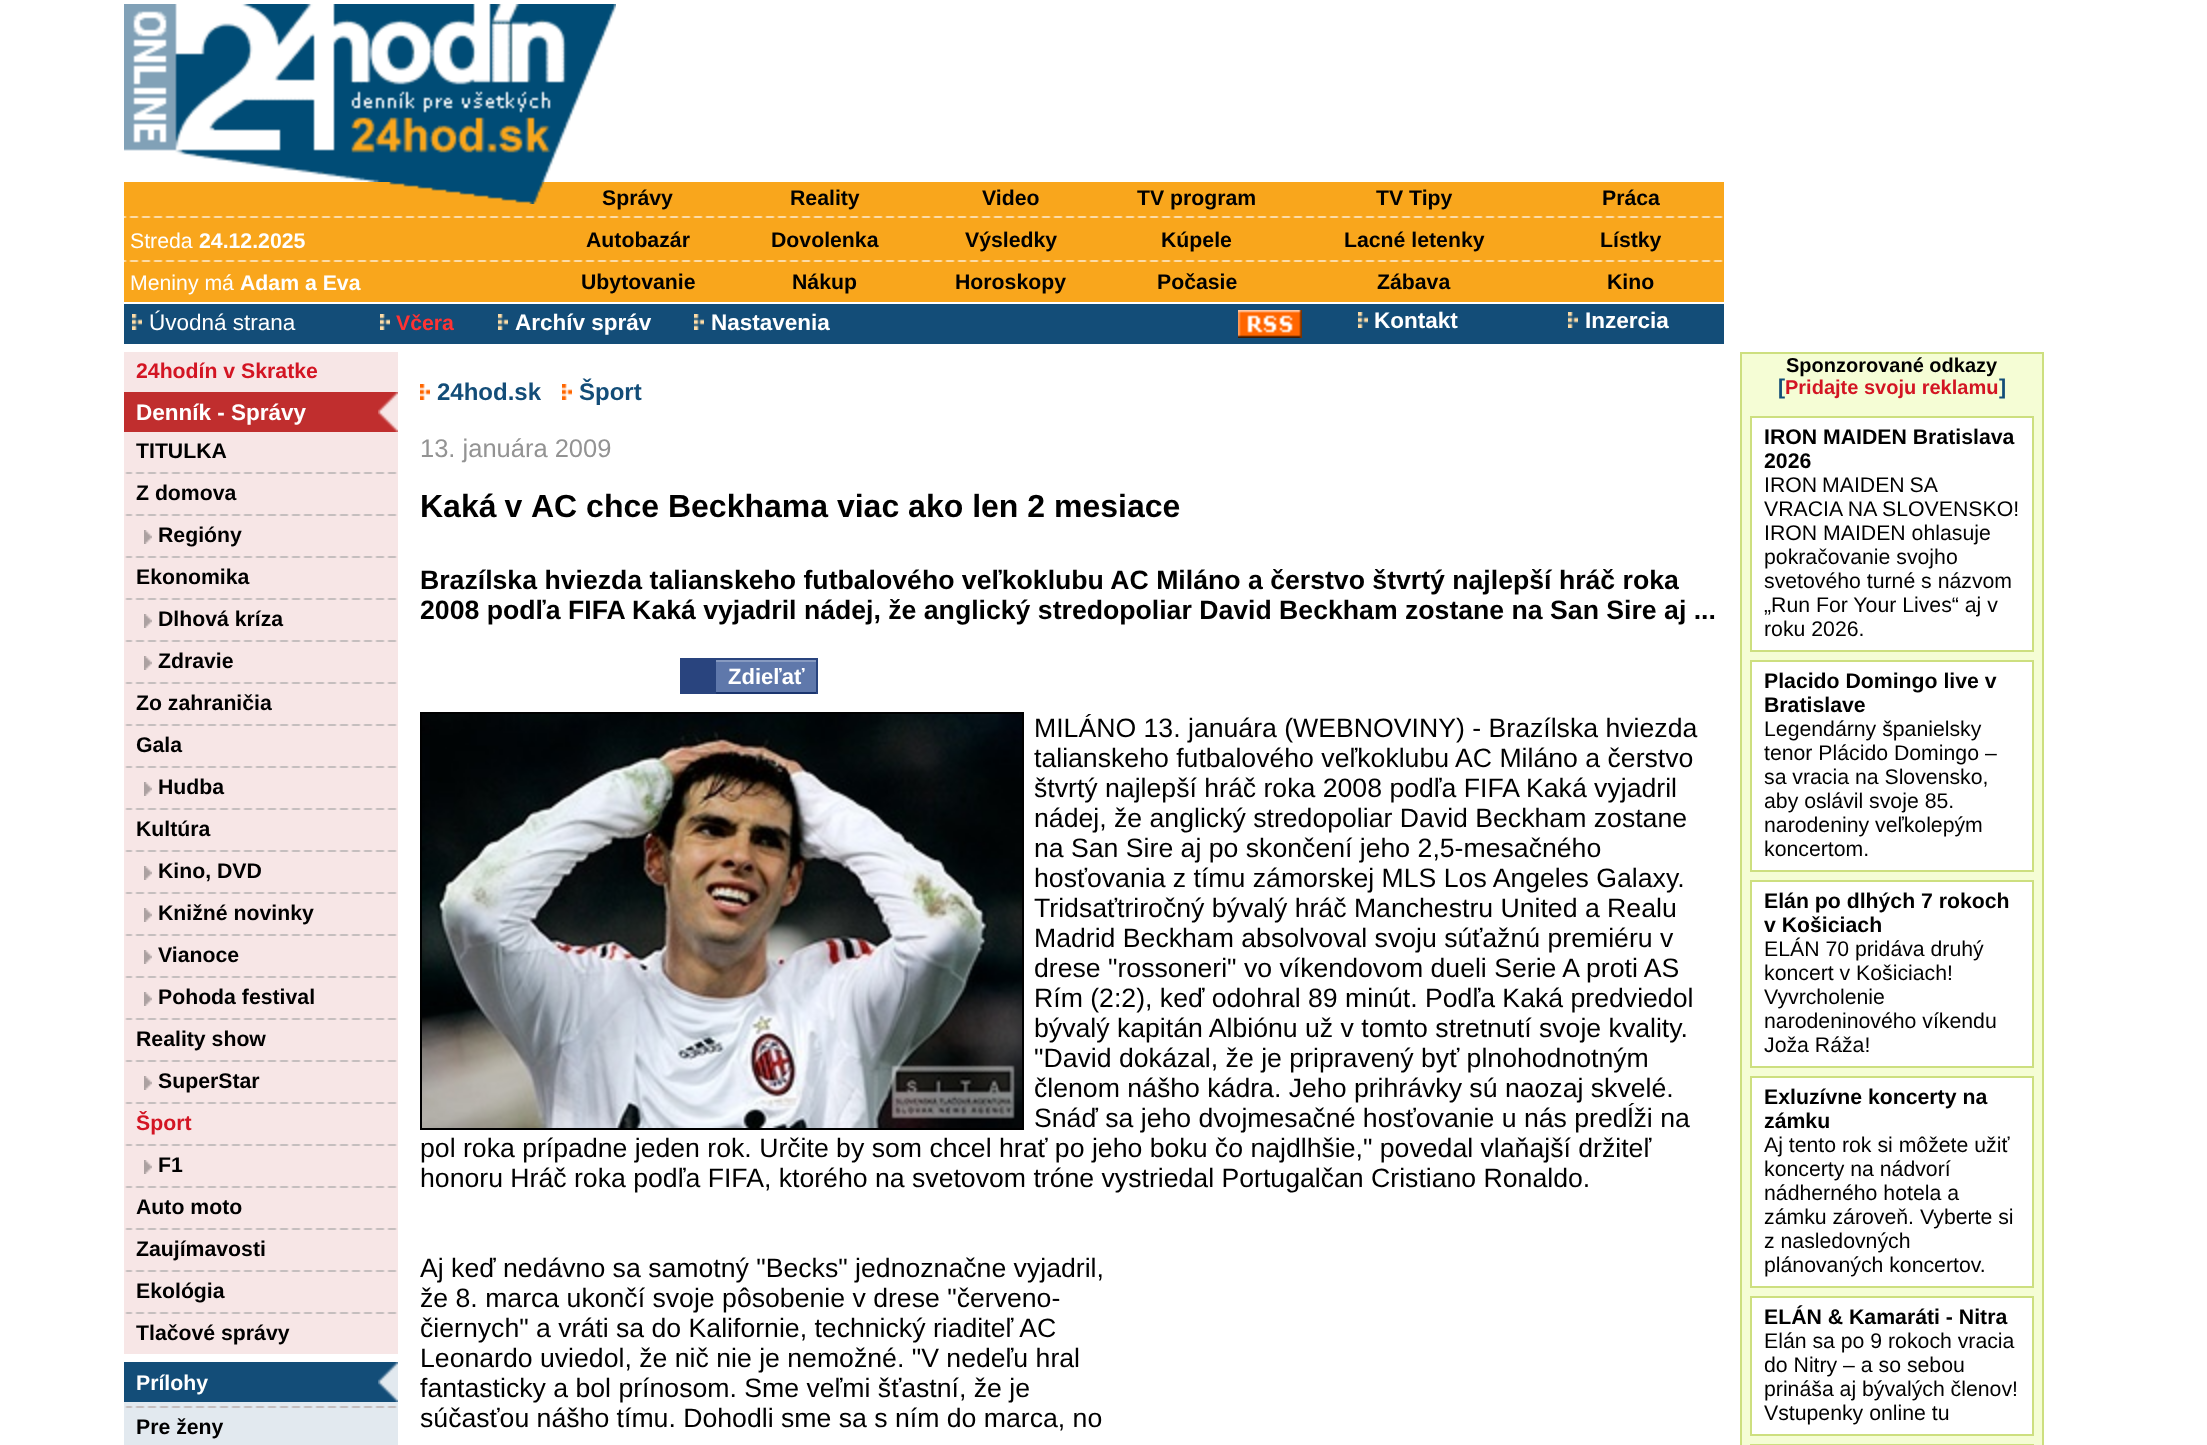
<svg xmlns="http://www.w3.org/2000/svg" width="2207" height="1445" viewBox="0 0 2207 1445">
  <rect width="100%" height="100%" fill="#fff"/>
  <image x="124" y="4" width="492" height="178" href="img/1.png"/>
  <path d="M124 182h1600v120H124z" fill="#f9a61c"/>
  <image x="389" y="182" width="155" height="22" href="img/2.png"/>
  <image x="124" y="216" width="1599" height="2" href="img/3.png"/>
  <image x="124" y="260" width="1599" height="2" href="img/3.png"/>
  <path d="M124 304h1600v40H124z" fill="#134d78"/>
  <image x="132" y="314" width="10" height="16" href="img/4.png"/>
  <image x="380" y="314" width="10" height="16" href="img/4.png"/>
  <image x="498" y="314" width="10" height="16" href="img/4.png"/>
  <image x="694" y="314" width="10" height="16" href="img/4.png"/>
  <image x="1238" y="310" width="64" height="28" href="img/5.png"/>
  <image x="1358" y="312" width="10" height="16" href="img/4.png"/>
  <image x="1568" y="312" width="10" height="16" href="img/4.png"/>
  <path d="M124 352h274v40H124z" fill="#f7e6e6"/>
  <path d="M124 392h254v40H124z" fill="#c02e2e"/>
  <image x="378" y="392" width="20" height="40" href="img/6.png"/>
  <path d="M124 432h274v922H124z" fill="#f7e6e6"/>
  <image x="125" y="472" width="272" height="2" href="img/7.png"/>
  <image x="125" y="514" width="272" height="2" href="img/7.png"/>
  <image x="144" y="530" width="8" height="14" href="img/8.png"/>
  <image x="125" y="556" width="272" height="2" href="img/7.png"/>
  <image x="125" y="598" width="272" height="2" href="img/7.png"/>
  <image x="144" y="614" width="8" height="14" href="img/8.png"/>
  <image x="125" y="640" width="272" height="2" href="img/7.png"/>
  <image x="144" y="656" width="8" height="14" href="img/8.png"/>
  <image x="125" y="682" width="272" height="2" href="img/7.png"/>
  <image x="125" y="724" width="272" height="2" href="img/7.png"/>
  <image x="125" y="766" width="272" height="2" href="img/7.png"/>
  <image x="144" y="782" width="8" height="14" href="img/8.png"/>
  <image x="125" y="808" width="272" height="2" href="img/7.png"/>
  <image x="125" y="850" width="272" height="2" href="img/7.png"/>
  <image x="144" y="866" width="8" height="14" href="img/8.png"/>
  <image x="125" y="892" width="272" height="2" href="img/7.png"/>
  <image x="144" y="908" width="8" height="14" href="img/8.png"/>
  <image x="125" y="934" width="272" height="2" href="img/7.png"/>
  <image x="144" y="950" width="8" height="14" href="img/8.png"/>
  <image x="125" y="976" width="272" height="2" href="img/7.png"/>
  <image x="144" y="992" width="8" height="14" href="img/8.png"/>
  <image x="125" y="1018" width="272" height="2" href="img/7.png"/>
  <image x="125" y="1060" width="272" height="2" href="img/7.png"/>
  <image x="144" y="1076" width="8" height="14" href="img/8.png"/>
  <image x="125" y="1102" width="272" height="2" href="img/7.png"/>
  <image x="125" y="1144" width="272" height="2" href="img/7.png"/>
  <image x="144" y="1160" width="8" height="14" href="img/8.png"/>
  <image x="125" y="1186" width="272" height="2" href="img/7.png"/>
  <image x="125" y="1228" width="272" height="2" href="img/7.png"/>
  <image x="125" y="1270" width="272" height="2" href="img/7.png"/>
  <image x="125" y="1312" width="272" height="2" href="img/7.png"/>
  <path d="M124 1362h254v40H124z" fill="#134d78"/>
  <image x="378" y="1362" width="20" height="40" href="img/9.png"/>
  <path d="M124 1402h274v43H124z" fill="#e2e9ef"/>
  <image x="125" y="1406" width="272" height="2" href="img/10.png"/>
  <image x="420" y="384" width="10" height="16" href="img/11.png"/>
  <image x="562" y="384" width="10" height="16" href="img/11.png"/>
  <path d="M680 658h138v36H680z" fill="#29447e"/>
  <path d="M716 662h100v30H716z" fill="#5f78ab"/>
  <path d="M716 660h100v2H716z" fill="#879ac0"/>
  <path d="M716 692h100v2H716z" fill="#1a356e"/>
  <path d="M421 713h602v416H421z" fill="none" stroke="#000" stroke-width="2"/>
  <image x="422" y="714" width="600" height="414" href="img/12.png"/>
  <path d="M1741 353h302v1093H1741z" fill="#f5fdd5" stroke="#cddf7f" stroke-width="2"/>
  <path d="M1751 417h282v234H1751z" fill="#fff" stroke="#cddf7f" stroke-width="2"/>
  <path d="M1751 661h282v210H1751z" fill="#fff" stroke="#cddf7f" stroke-width="2"/>
  <path d="M1751 881h282v186H1751z" fill="#fff" stroke="#cddf7f" stroke-width="2"/>
  <path d="M1751 1077h282v210H1751z" fill="#fff" stroke="#cddf7f" stroke-width="2"/>
  <path d="M1751 1297h282v138H1751z" fill="#fff" stroke="#cddf7f" stroke-width="2"/>
  <path d="M1751 1445h282v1H1751z" fill="none" stroke="#cddf7f" stroke-width="2"/>
  <g font-family="Liberation Sans" font-size="21.25" font-weight="bold" fill="#000">
    <text x="602" y="205">Správy</text>
    <text x="790" y="205">Reality</text>
    <text x="982" y="205">Video</text>
    <text x="1137" y="205">TV program</text>
    <text x="1376" y="205">TV Tipy</text>
    <text x="1602" y="205">Práca</text>
  </g>
  <text x="130" y="248" font-family="Liberation Sans" font-size="21.25" fill="#fff">Streda</text>
  <text x="199" y="248" font-family="Liberation Sans" font-size="21.25" font-weight="bold" fill="#fff">24.12.2025</text>
  <g font-family="Liberation Sans" font-size="21.25" font-weight="bold" fill="#000">
    <text x="586" y="247">Autobazár</text>
    <text x="771" y="247">Dovolenka</text>
    <text x="965" y="247">Výsledky</text>
    <text x="1161" y="247">Kúpele</text>
    <text x="1344" y="247">Lacné letenky</text>
    <text x="1600" y="247">Lístky</text>
  </g>
  <text x="130" y="290" font-family="Liberation Sans" font-size="21.25" fill="#fff">Meniny má</text>
  <text x="240" y="290" font-family="Liberation Sans" font-size="21.25" font-weight="bold" fill="#fff">Adam a Eva</text>
  <g font-family="Liberation Sans" font-size="21.25" font-weight="bold" fill="#000">
    <text x="581" y="289">Ubytovanie</text>
    <text x="792" y="289">Nákup</text>
    <text x="955" y="289">Horoskopy</text>
    <text x="1157" y="289">Počasie</text>
    <text x="1377" y="289">Zábava</text>
    <text x="1607" y="289">Kino</text>
  </g>
  <text x="149" y="330" font-family="Liberation Sans" font-size="22.5" fill="#fff">Úvodná strana</text>
  <text x="396" y="330" font-family="Liberation Sans" font-size="21.25" font-weight="bold" fill="#f33">Včera</text>
  <g font-family="Liberation Sans" font-size="22.5" font-weight="bold" fill="#fff">
    <text x="515" y="330">Archív správ</text>
    <text x="711" y="330">Nastavenia</text>
    <text x="1374" y="328">Kontakt</text>
    <text x="1585" y="328">Inzercia</text>
  </g>
  <text x="136" y="378" font-family="Liberation Sans" font-size="21.25" font-weight="bold" fill="#d31523">24hodín v Skratke</text>
  <text x="136" y="420" font-family="Liberation Sans" font-size="22.5" font-weight="bold" fill="#fff">Denník - Správy</text>
  <g font-family="Liberation Sans" font-size="21.25" font-weight="bold" fill="#000">
    <text x="136" y="458">TITULKA</text>
    <text x="136" y="500">Z domova</text>
    <text x="158" y="542">Regióny</text>
    <text x="136" y="584">Ekonomika</text>
    <text x="158" y="626">Dlhová kríza</text>
    <text x="158" y="668">Zdravie</text>
    <text x="136" y="710">Zo zahraničia</text>
    <text x="136" y="752">Gala</text>
    <text x="158" y="794">Hudba</text>
    <text x="136" y="836">Kultúra</text>
    <text x="158" y="878">Kino, DVD</text>
    <text x="158" y="920">Knižné novinky</text>
    <text x="158" y="962">Vianoce</text>
    <text x="158" y="1004">Pohoda festival</text>
    <text x="136" y="1046">Reality show</text>
    <text x="158" y="1088">SuperStar</text>
  </g>
  <text x="136" y="1130" font-family="Liberation Sans" font-size="21.25" font-weight="bold" fill="#d31523">Šport</text>
  <g font-family="Liberation Sans" font-size="21.25" font-weight="bold" fill="#000">
    <text x="158" y="1172">F1</text>
    <text x="136" y="1214">Auto moto</text>
    <text x="136" y="1256">Zaujímavosti</text>
    <text x="136" y="1298">Ekológia</text>
    <text x="136" y="1340">Tlačové správy</text>
  </g>
  <text x="136" y="1390" font-family="Liberation Sans" font-size="21.25" font-weight="bold" fill="#fff">Prílohy</text>
  <text x="136" y="1434" font-family="Liberation Sans" font-size="21.25" font-weight="bold" fill="#000">Pre ženy</text>
  <g font-family="Liberation Sans" font-size="24" font-weight="bold" fill="#134d78">
    <text x="437" y="400">24hod.sk</text>
    <text x="579" y="400">Šport</text>
  </g>
  <text x="420" y="457" font-family="Liberation Sans" font-size="25.5" fill="#939393">13. januára 2009</text>
  <g font-family="Liberation Sans" font-size="32" font-weight="bold" fill="#000">
    <text x="420" y="517" word-spacing="-1">Kaká v</text>
    <text x="531" y="517">AC chce Beckhama viac ako len 2 mesiace</text>
  </g>
  <g font-family="Liberation Sans" font-size="26.65" font-weight="bold" fill="#000">
    <text x="420" y="589">Brazílska hviezda talianskeho futbalového veľkoklubu AC Miláno a čerstvo štvrtý najlepší hráč roka</text>
    <text x="420" y="619">2008 podľa FIFA Kaká vyjadril nádej, že anglický stredopoliar David Beckham zostane na San Sire aj ...</text>
  </g>
  <text x="728" y="684" font-family="Liberation Sans" font-size="22" font-weight="bold" fill="#fff">Zdieľať</text>
  <g font-family="Liberation Sans" font-size="26.65" fill="#000">
    <text x="1034" y="737">MILÁNO 13. januára (WEBNOVINY) - Brazílska hviezda</text>
    <text x="1034" y="767">talianskeho futbalového veľkoklubu AC Miláno a čerstvo</text>
    <text x="1034" y="797">štvrtý najlepší hráč roka 2008 podľa FIFA Kaká vyjadril</text>
    <text x="1034" y="827">nádej, že anglický stredopoliar David Beckham zostane</text>
    <text x="1034" y="857">na San Sire aj po skončení jeho 2,5-mesačného</text>
    <text x="1034" y="887">hosťovania z tímu zámorskej MLS Los Angeles Galaxy.</text>
    <text x="1034" y="917">Tridsaťtriročný bývalý hráč Manchestru United a Realu</text>
    <text x="1034" y="947">Madrid Beckham absolvoval svoju súťažnú premiéru v</text>
    <text x="1034" y="977">drese "rossoneri" vo víkendovom dueli Serie A proti AS</text>
    <text x="1034" y="1007">Rím (2:2), keď odohral 89 minút. Podľa Kaká predviedol</text>
    <text x="1034" y="1037">bývalý kapitán Albiónu už v tomto stretnutí svoje kvality.</text>
    <text x="1034" y="1067">"David dokázal, že je pripravený byť plnohodnotným</text>
    <text x="1034" y="1097">členom nášho kádra. Jeho prihrávky sú naozaj skvelé.</text>
    <text x="1034" y="1127">Snáď sa jeho dvojmesačné hosťovanie u nás predĺži na</text>
    <text x="420" y="1157">pol roka prípadne jeden rok. Určite by som chcel hrať po jeho boku čo najdlhšie," povedal vlaňajší držiteľ</text>
    <text x="420" y="1187">honoru Hráč roka podľa FIFA, ktorého na svetovom tróne vystriedal Portugalčan Cristiano Ronaldo.</text>
    <text x="420" y="1277">Aj keď nedávno sa samotný "Becks" jednoznačne vyjadril,</text>
    <text x="420" y="1307">že 8. marca ukončí svoje pôsobenie v drese "červeno-</text>
    <text x="420" y="1337">čiernych" a vráti sa do Kalifornie, technický riaditeľ AC</text>
    <text x="420" y="1367">Leonardo uviedol, že nič nie je nemožné. "V nedeľu hral</text>
    <text x="420" y="1397">fantasticky a bol prínosom. Sme veľmi šťastní, že je</text>
    <text x="420" y="1427">súčasťou nášho tímu. Dohodli sme sa s ním do marca, no</text>
  </g>
  <text x="1786" y="372" font-family="Liberation Sans" font-size="20" font-weight="bold" fill="#000">Sponzorované odkazy</text>
  <text x="1778" y="394" font-family="Liberation Sans" font-size="21.25" font-weight="bold" fill="#134d78">[</text>
  <text x="1785" y="394" font-family="Liberation Sans" font-size="20" font-weight="bold" fill="#d31523">Pridajte svoju reklamu</text>
  <text x="1999" y="394" font-family="Liberation Sans" font-size="21.25" font-weight="bold" fill="#134d78">]</text>
  <g font-family="Liberation Sans" font-size="21.25" font-weight="bold" fill="#000">
    <text x="1764" y="444">IRON MAIDEN Bratislava</text>
    <text x="1764" y="468">2026</text>
  </g>
  <g font-family="Liberation Sans" font-size="21.25" fill="#000">
    <text x="1764" y="492" word-spacing="-1">IRON MAIDEN SA</text>
    <text x="1764" y="516">VRACIA NA SLOVENSKO!</text>
    <text x="1764" y="540">IRON MAIDEN ohlasuje</text>
    <text x="1764" y="564">pokračovanie svojho</text>
    <text x="1764" y="588">svetového turné s názvom</text>
    <text x="1764" y="612">„Run For Your Lives“ aj v</text>
    <text x="1764" y="636">roku 2026.</text>
  </g>
  <g font-family="Liberation Sans" font-size="21.25" font-weight="bold" fill="#000">
    <text x="1764" y="688">Placido Domingo live v</text>
    <text x="1764" y="712">Bratislave</text>
  </g>
  <g font-family="Liberation Sans" font-size="21.25" fill="#000">
    <text x="1764" y="736">Legendárny španielsky</text>
    <text x="1764" y="760">tenor Plácido Domingo –</text>
    <text x="1764" y="784">sa vracia na Slovensko,</text>
    <text x="1764" y="808">aby oslávil svoje 85.</text>
    <text x="1764" y="832">narodeniny veľkolepým</text>
    <text x="1764" y="856">koncertom.</text>
  </g>
  <g font-family="Liberation Sans" font-size="21.25" font-weight="bold" fill="#000">
    <text x="1764" y="908">Elán po dlhých 7 rokoch</text>
    <text x="1764" y="932">v Košiciach</text>
  </g>
  <g font-family="Liberation Sans" font-size="21.25" fill="#000">
    <text x="1764" y="956">ELÁN 70 pridáva druhý</text>
    <text x="1764" y="980">koncert v Košiciach!</text>
    <text x="1764" y="1004">Vyvrcholenie</text>
    <text x="1764" y="1028">narodeninového víkendu</text>
    <text x="1764" y="1052">Joža Ráža!</text>
  </g>
  <g font-family="Liberation Sans" font-size="21.25" font-weight="bold" fill="#000">
    <text x="1764" y="1104">Exluzívne koncerty na</text>
    <text x="1764" y="1128">zámku</text>
  </g>
  <g font-family="Liberation Sans" font-size="21.25" fill="#000">
    <text x="1764" y="1152">Aj tento rok si môžete užiť</text>
    <text x="1764" y="1176">koncerty na nádvorí</text>
    <text x="1764" y="1200">nádherného hotela a</text>
    <text x="1764" y="1224">zámku zároveň. Vyberte si</text>
    <text x="1764" y="1248">z nasledovných</text>
    <text x="1764" y="1272">plánovaných koncertov.</text>
  </g>
  <text x="1764" y="1324" font-family="Liberation Sans" font-size="21.25" font-weight="bold" fill="#000">ELÁN &amp; Kamaráti - Nitra</text>
  <g font-family="Liberation Sans" font-size="21.25" fill="#000">
    <text x="1764" y="1348">Elán sa po 9 rokoch vracia</text>
    <text x="1764" y="1372">do Nitry – a so sebou</text>
    <text x="1764" y="1396">prináša aj bývalých členov!</text>
    <text x="1764" y="1420">Vstupenky online tu</text>
  </g>
</svg>
